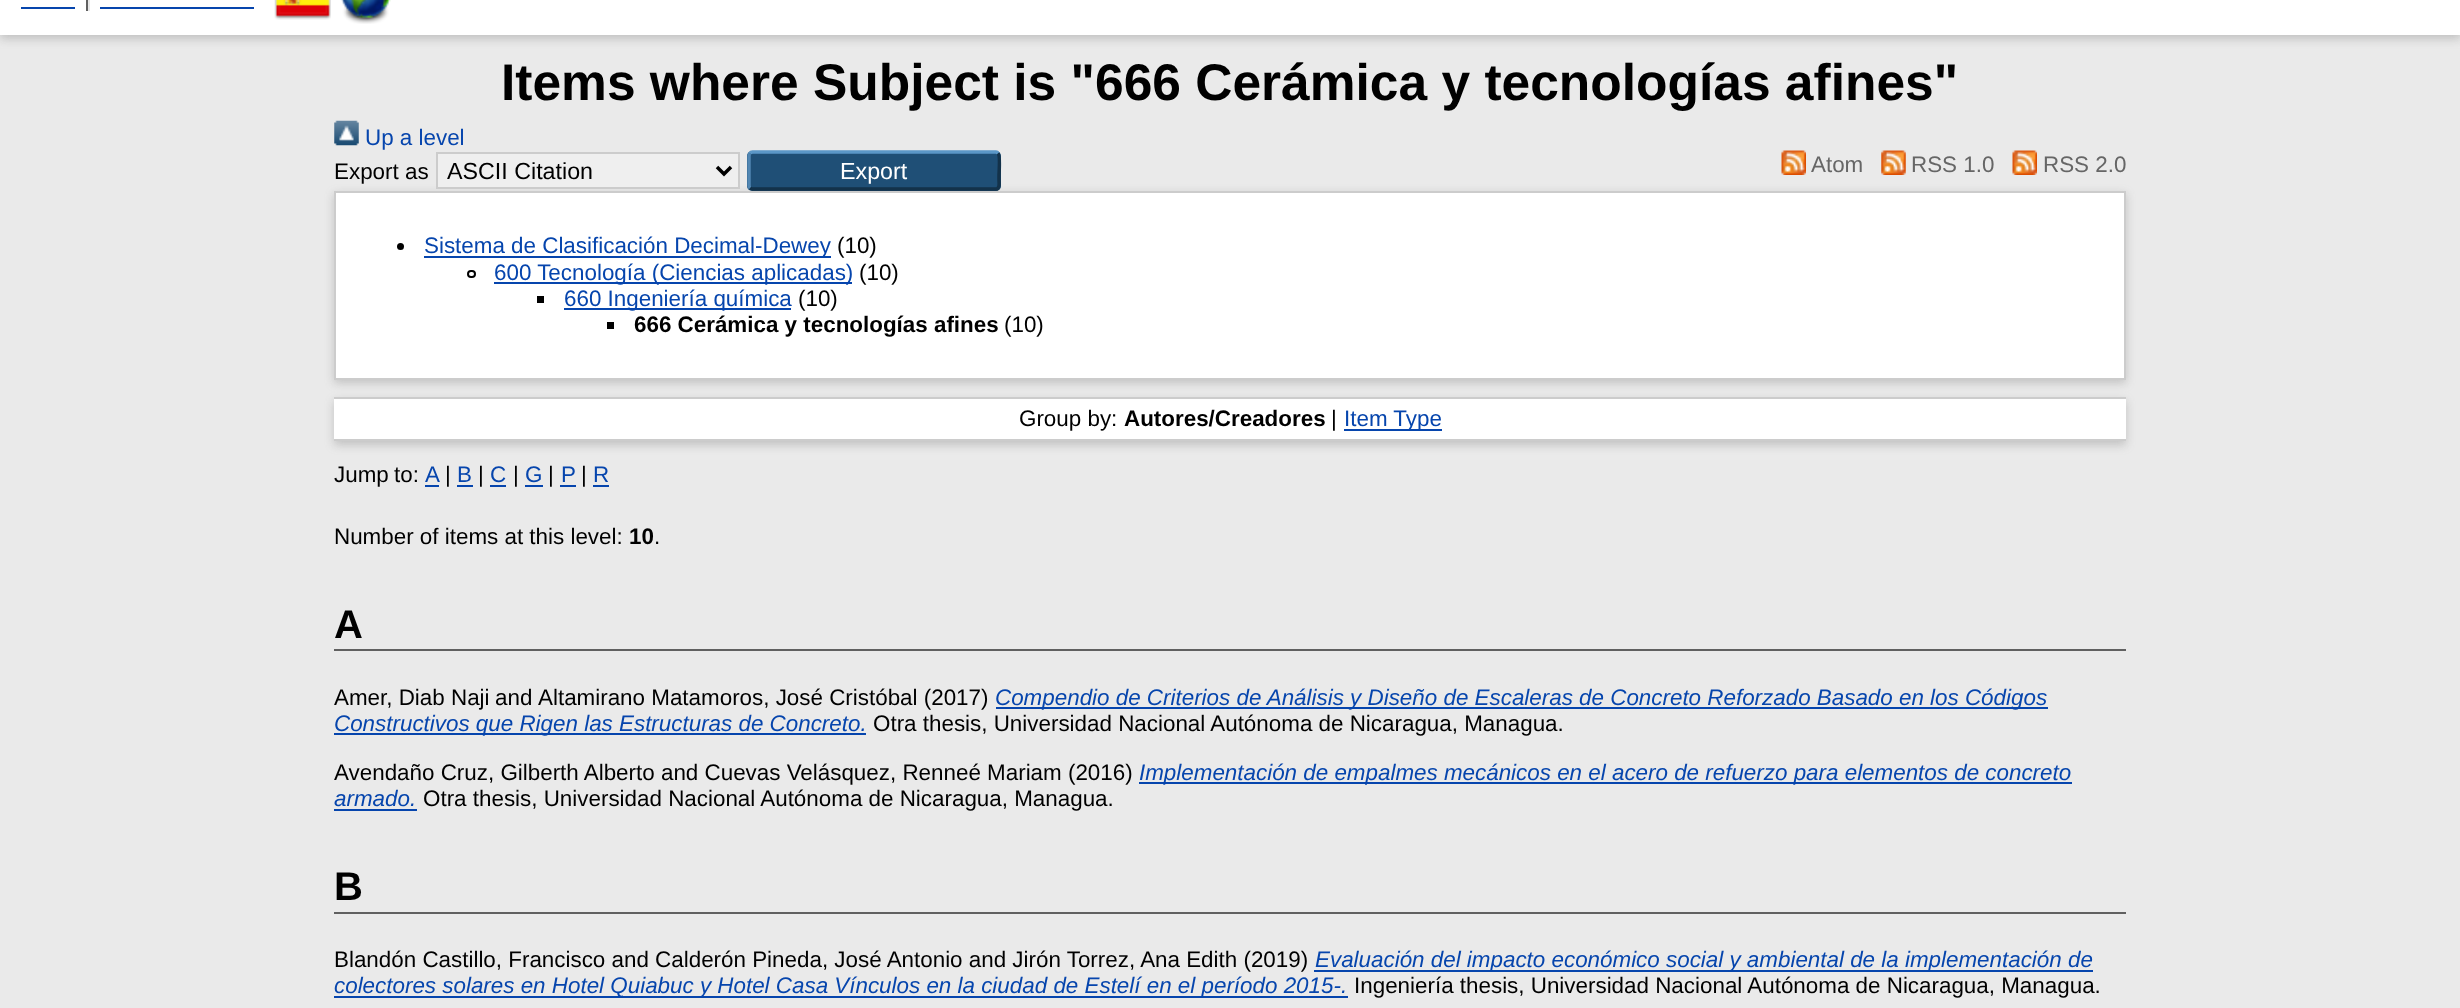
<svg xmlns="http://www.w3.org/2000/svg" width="2460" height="1008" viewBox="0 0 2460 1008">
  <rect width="100%" height="100%" fill="#eaeaea"/>
  <path d="M0 -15h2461v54H0z" fill="#6464644d" filter="blur(5px)"/>
  <path d="M0 0h2460v35H0z" fill="#fff"/>
  <path d="M86 0h2v11H86z" fill="#606060"/>
  <path d="M21 7h54v2H21z" fill="#0645ad"/>
  <path d="M88 0h2v11H88z" fill="#e8e8e8"/>
  <path d="M100 7h154v2H100z" fill="#0645ad"/>
  <image x="274" y="0" width="57" height="20" href="img/1.png"/>
  <image x="341" y="0" width="50" height="24" href="img/2.png"/>
  <image x="334" y="120" width="25" height="26" href="img/3.png"/>
  <path d="M334 194h1792v189H334z" fill="#6464644d" filter="blur(5px)"/>
  <path d="M437 153h302v35H437z" fill="#efefef" stroke="#ccc" stroke-width="2"/>
  <path d="M717 167L724 174L731 167" fill="none" stroke="#000" stroke-width="3.5"/>
  <rect x="747" y="151" width="254" height="40" rx="5" fill="#1f4f76"/>
  <path d="M750 153.5C750.5 152.5 751.5 152 752.5 152H996C996.5 152 997.5 152.5 998 153.5" fill="none" stroke="#5b97c7" stroke-width="3.5"/>
  <path d="M998 153.5C1000.5 155.5 999 172 999 175.5V180.5C999 183 1000 188 997 189H752.5L750 188" fill="none" stroke="#13324a" stroke-width="3.5"/>
  <path d="M750 188C749.5 187.5 749 186.5 749 185.5V156C749 155 749.5 154 750 153.5" fill="none" stroke="#5287b3" stroke-width="3.5"/>
  <image x="1781" y="150" width="25" height="25" href="img/4.png"/>
  <image x="1881" y="150" width="25" height="25" href="img/5.png"/>
  <image x="2012" y="150" width="25" height="25" href="img/4.png"/>
  <path d="M335 192h1790v187H335z" fill="#fff" stroke="#ccc" stroke-width="2"/>
  <circle cx="400.5" cy="246.5" r="3.5" fill="#000"/>
  <path d="M424 256h407v2H424z" fill="#0645ad"/>
  <rect x="468" y="271" width="7" height="6" rx="3" fill="none" stroke="#000" stroke-width="2"/>
  <path d="M494 282h358v2H494z" fill="#0645ad"/>
  <path d="M537 296h7v7H537z" fill="#000"/>
  <path d="M564 308h227v2H564z" fill="#0645ad"/>
  <path d="M607 322h7v7H607z" fill="#000"/>
  <path d="M334 401h1792v44H334z" fill="#6464644d" filter="blur(5px)"/>
  <path d="M334 399h1792v40H334z" fill="#fff"/>
  <path d="M334 397h1792v2H334z" fill="#ccc"/>
  <path d="M334 439h1792v2H334z" fill="#ccc"/>
  <path d="M1344 429h98v2H1344z" fill="#0645ad"/>
  <path d="M425 485h14v2H425z" fill="#0645ad"/>
  <path d="M457 485h16v2H457z" fill="#0645ad"/>
  <path d="M490 485h16v2H490z" fill="#0645ad"/>
  <path d="M525 485h18v2H525z" fill="#0645ad"/>
  <path d="M560 485h16v2H560z" fill="#0645ad"/>
  <path d="M593 485h16v2H593z" fill="#0645ad"/>
  <path d="M334 649h1792v2H334z" fill="#606060"/>
  <path d="M996 707h1052v2H996z" fill="#0645ad"/>
  <path d="M334 733h532v2H334z" fill="#0645ad"/>
  <path d="M1139 782h933v2H1139z" fill="#0645ad"/>
  <path d="M334 809h83v2H334z" fill="#0645ad"/>
  <path d="M334 912h1792v2H334z" fill="#606060"/>
  <path d="M1314 970h779v2H1314z" fill="#0645ad"/>
  <path d="M334 996h1014v2H334z" fill="#0645ad"/>
  <text x="501" y="100" font-family="Liberation Sans" font-size="51.5" font-weight="bold" fill="#000">Items where Subject is "666 Cerámica y tecnologías afines"</text>
  <text x="365" y="145" font-family="Liberation Sans" font-size="22.4" fill="#0645ad">Up a level</text>
  <text x="334" y="179" font-family="Liberation Sans" font-size="22.4" fill="#000">Export as</text>
  <text x="447" y="179" font-family="Liberation Sans" font-size="23.25" fill="#000">ASCII Citation</text>
  <text x="840" y="179" font-family="Liberation Sans" font-size="23.25" fill="#fff">Export</text>
  <g font-family="Liberation Sans" font-size="22.4" fill="#666">
    <text x="1811" y="172">Atom</text>
    <text x="1911" y="172">RSS 1.0</text>
    <text x="2043" y="172">RSS 2.0</text>
  </g>
  <text x="424" y="253" font-family="Liberation Sans" font-size="22.4" fill="#0645ad">Sistema de Clasificación Decimal-Dewey</text>
  <text x="837" y="253" font-family="Liberation Sans" font-size="22.4" fill="#000">(10)</text>
  <text x="494" y="280" font-family="Liberation Sans" font-size="22.4" fill="#0645ad">600 Tecnología (Ciencias aplicadas)</text>
  <text x="859" y="280" font-family="Liberation Sans" font-size="22.4" fill="#000">(10)</text>
  <text x="564" y="306" font-family="Liberation Sans" font-size="22.4" fill="#0645ad">660 Ingeniería química</text>
  <text x="798" y="306" font-family="Liberation Sans" font-size="22.4" fill="#000">(10)</text>
  <text x="634" y="332" font-family="Liberation Sans" font-size="22.4" font-weight="bold" fill="#000">666 Cerámica y tecnologías afines</text>
  <g font-family="Liberation Sans" font-size="22.4" fill="#000">
    <text x="1004" y="332">(10)</text>
    <text x="1019" y="426">Group by:</text>
  </g>
  <text x="1124" y="426" font-family="Liberation Sans" font-size="22.4" font-weight="bold" fill="#000">Autores/Creadores</text>
  <text x="1331" y="426" font-family="Liberation Sans" font-size="22.4" fill="#000">|</text>
  <text x="1344" y="426" font-family="Liberation Sans" font-size="22.4" fill="#0645ad">Item Type</text>
  <text x="334" y="482" word-spacing="-1" font-family="Liberation Sans" font-size="22.4" fill="#000">Jump to:</text>
  <text x="425" y="482" font-family="Liberation Sans" font-size="22.4" fill="#0645ad">A</text>
  <text x="445" y="482" font-family="Liberation Sans" font-size="22.4" fill="#000">|</text>
  <text x="457" y="482" font-family="Liberation Sans" font-size="22.4" fill="#0645ad">B</text>
  <text x="478" y="482" font-family="Liberation Sans" font-size="22.4" fill="#000">|</text>
  <text x="490" y="482" font-family="Liberation Sans" font-size="22.4" fill="#0645ad">C</text>
  <text x="513" y="482" font-family="Liberation Sans" font-size="22.4" fill="#000">|</text>
  <text x="525" y="482" font-family="Liberation Sans" font-size="22.4" fill="#0645ad">G</text>
  <text x="548" y="482" font-family="Liberation Sans" font-size="22.4" fill="#000">|</text>
  <text x="561" y="482" font-family="Liberation Sans" font-size="22.4" fill="#0645ad">P</text>
  <text x="581" y="482" font-family="Liberation Sans" font-size="22.4" fill="#000">|</text>
  <text x="593" y="482" font-family="Liberation Sans" font-size="22.4" fill="#0645ad">R</text>
  <text x="334" y="544" font-family="Liberation Sans" font-size="22.4" fill="#000">Number of items at this level:</text>
  <text x="629" y="544" font-family="Liberation Sans" font-size="22.4" font-weight="bold" fill="#000">10</text>
  <text x="654" y="544" font-family="Liberation Sans" font-size="22.4" fill="#000">.</text>
  <text x="334" y="638" font-family="Liberation Sans" font-size="40" font-weight="bold" fill="#000">A</text>
  <g font-family="Liberation Sans" font-size="22.4" fill="#000">
    <text x="334" y="705">Amer, Diab Naji</text>
    <text x="495" y="705">and</text>
    <text x="538" y="705">Altamirano Matamoros, José Cristóbal (2017)</text>
  </g>
  <g font-family="Liberation Sans" font-size="22.4" font-style="italic" fill="#0645ad">
    <text x="995" y="705">Compendio de Criterios de Análisis y Diseño de Escaleras de Concreto Reforzado Basado en los Códigos</text>
    <text x="334" y="731">Constructivos que Rigen las Estructuras de Concreto.</text>
  </g>
  <g font-family="Liberation Sans" font-size="22.4" fill="#000">
    <text x="873" y="731">Otra thesis, Universidad Nacional Autónoma de Nicaragua, Managua.</text>
    <text x="334" y="780">Avendaño Cruz, Gilberth Alberto and Cuevas Velásquez, Renneé Mariam (2016)</text>
  </g>
  <g font-family="Liberation Sans" font-size="22.4" font-style="italic" fill="#0645ad">
    <text x="1139" y="780">Implementación de empalmes mecánicos en el acero de refuerzo para elementos de concreto</text>
    <text x="334" y="806">armado.</text>
  </g>
  <text x="423" y="806" font-family="Liberation Sans" font-size="22.4" fill="#000">Otra thesis, Universidad Nacional Autónoma de Nicaragua, Managua.</text>
  <text x="334" y="900" font-family="Liberation Sans" font-size="40" font-weight="bold" fill="#000">B</text>
  <text x="334" y="967" font-family="Liberation Sans" font-size="22.4" fill="#000">Blandón Castillo, Francisco and Calderón Pineda, José Antonio and Jirón Torrez, Ana Edith (2019)</text>
  <g font-family="Liberation Sans" font-size="22.4" font-style="italic" fill="#0645ad">
    <text x="1315" y="967">Evaluación del impacto económico social y ambiental de la implementación de</text>
    <text x="334" y="993">colectores solares en Hotel Quiabuc y Hotel Casa Vínculos en la ciudad de Estelí en el período 2015-.</text>
  </g>
  <text x="1354" y="993" font-family="Liberation Sans" font-size="22.4" fill="#000">Ingeniería thesis, Universidad Nacional Autónoma de Nicaragua, Managua.</text>
</svg>
